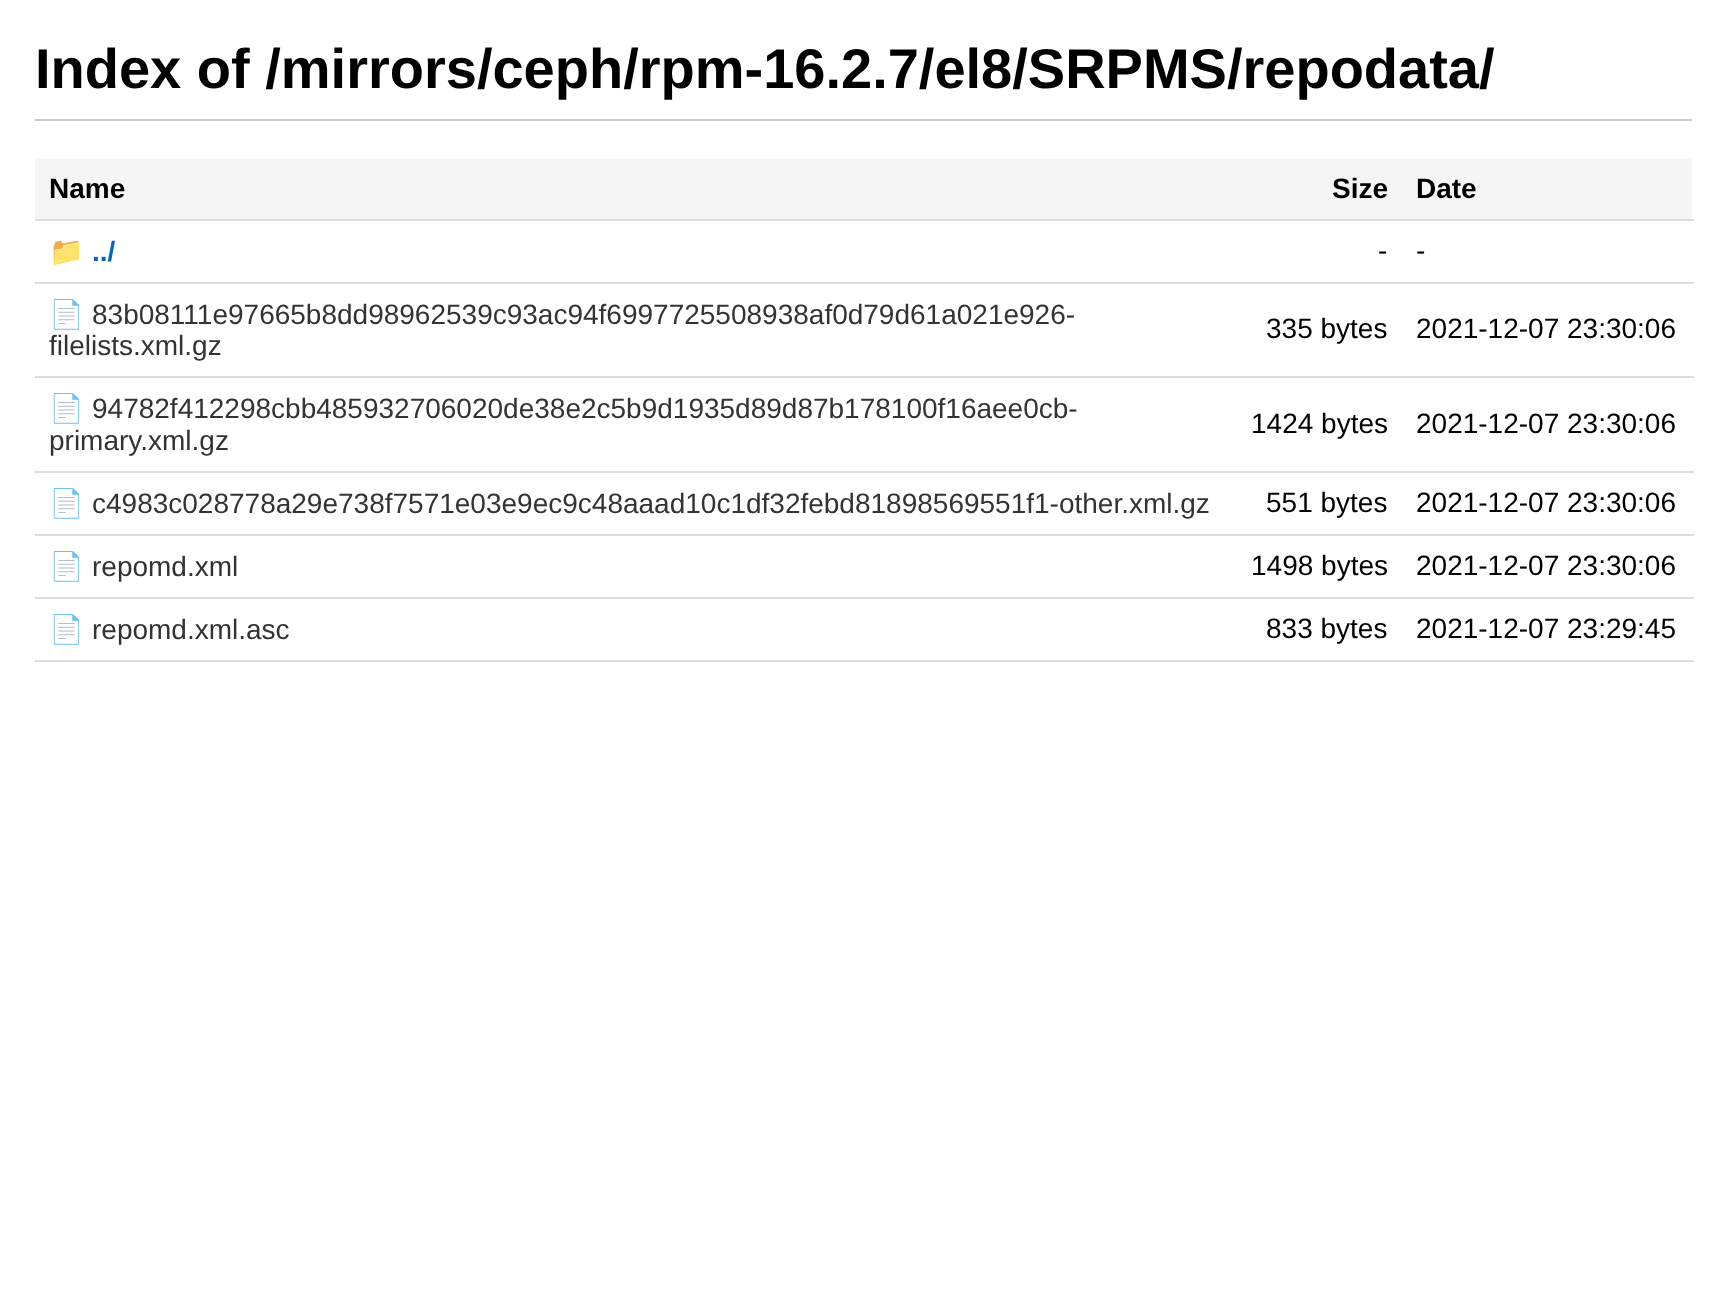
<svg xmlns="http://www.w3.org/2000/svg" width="1726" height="1294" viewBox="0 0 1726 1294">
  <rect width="100%" height="100%" fill="#fff"/>
  <path d="M35 119h1657v2H35z" fill="#ccc"/>
  <path d="M35 159h1657v60H35z" fill="#f5f5f5"/>
  <path d="M35 219h1659v2H35z" fill="#ddd"/>
  <path d="M35 282h1659v2H35z" fill="#ddd"/>
  <path d="M35 376h1659v2H35z" fill="#ddd"/>
  <path d="M35 471h1659v2H35z" fill="#ddd"/>
  <path d="M35 534h1659v2H35z" fill="#ddd"/>
  <path d="M35 597h1659v2H35z" fill="#ddd"/>
  <path d="M35 660h1659v2H35z" fill="#ddd"/>
  <text x="35" y="88" font-family="Liberation Sans" font-size="56" font-weight="bold" fill="#000">Index of /mirrors/ceph/rpm-16.2.7/el8/SRPMS/repodata/</text>
  <g font-family="Liberation Sans" font-size="28" font-weight="bold" fill="#000">
    <text x="49" y="198">Name</text>
    <text x="1332" y="198">Size</text>
    <text x="1416" y="198">Date</text>
  </g>
  <text x="49" y="261" font-family="Noto Color Emoji" font-size="28" font-weight="bold" fill="#06c">📁</text>
  <text x="92" y="261" font-family="Liberation Sans" font-size="28" font-weight="bold" fill="#06c">../</text>
  <g font-family="Liberation Sans" font-size="28" fill="#000">
    <text x="1378" y="260">-</text>
    <text x="1416" y="260">-</text>
  </g>
  <text x="49" y="324" font-family="Noto Color Emoji" font-size="28" fill="#333">📄</text>
  <g font-family="Liberation Sans" font-size="28" fill="#333">
    <text x="92" y="324">83b08111e97665b8dd98962539c93ac94f6997725508938af0d79d61a021e926-</text>
    <text x="49" y="355">filelists.xml.gz</text>
  </g>
  <g font-family="Liberation Sans" font-size="28" fill="#000">
    <text x="1266" y="338">335 bytes</text>
    <text x="1416" y="338">2021-12-07 23:30:06</text>
  </g>
  <text x="49" y="418" font-family="Noto Color Emoji" font-size="28" fill="#333">📄</text>
  <g font-family="Liberation Sans" font-size="28" fill="#333">
    <text x="92" y="418">94782f412298cbb485932706020de38e2c5b9d1935d89d87b178100f16aee0cb-</text>
    <text x="49" y="450">primary.xml.gz</text>
  </g>
  <g font-family="Liberation Sans" font-size="28" fill="#000">
    <text x="1251" y="433">1424 bytes</text>
    <text x="1416" y="433">2021-12-07 23:30:06</text>
  </g>
  <text x="49" y="513" font-family="Noto Color Emoji" font-size="28" fill="#333">📄</text>
  <text x="92" y="513" font-family="Liberation Sans" font-size="28" fill="#333">c4983c028778a29e738f7571e03e9ec9c48aaad10c1df32febd81898569551f1-other.xml.gz</text>
  <g font-family="Liberation Sans" font-size="28" fill="#000">
    <text x="1266" y="512">551 bytes</text>
    <text x="1416" y="512">2021-12-07 23:30:06</text>
  </g>
  <text x="49" y="576" font-family="Noto Color Emoji" font-size="28" fill="#333">📄</text>
  <text x="92" y="576" font-family="Liberation Sans" font-size="28" fill="#333">repomd.xml</text>
  <g font-family="Liberation Sans" font-size="28" fill="#000">
    <text x="1251" y="575">1498 bytes</text>
    <text x="1416" y="575">2021-12-07 23:30:06</text>
  </g>
  <text x="49" y="639" font-family="Noto Color Emoji" font-size="28" fill="#333">📄</text>
  <text x="92" y="639" font-family="Liberation Sans" font-size="28" fill="#333">repomd.xml.asc</text>
  <g font-family="Liberation Sans" font-size="28" fill="#000">
    <text x="1266" y="638">833 bytes</text>
    <text x="1416" y="638">2021-12-07 23:29:45</text>
  </g>
</svg>
